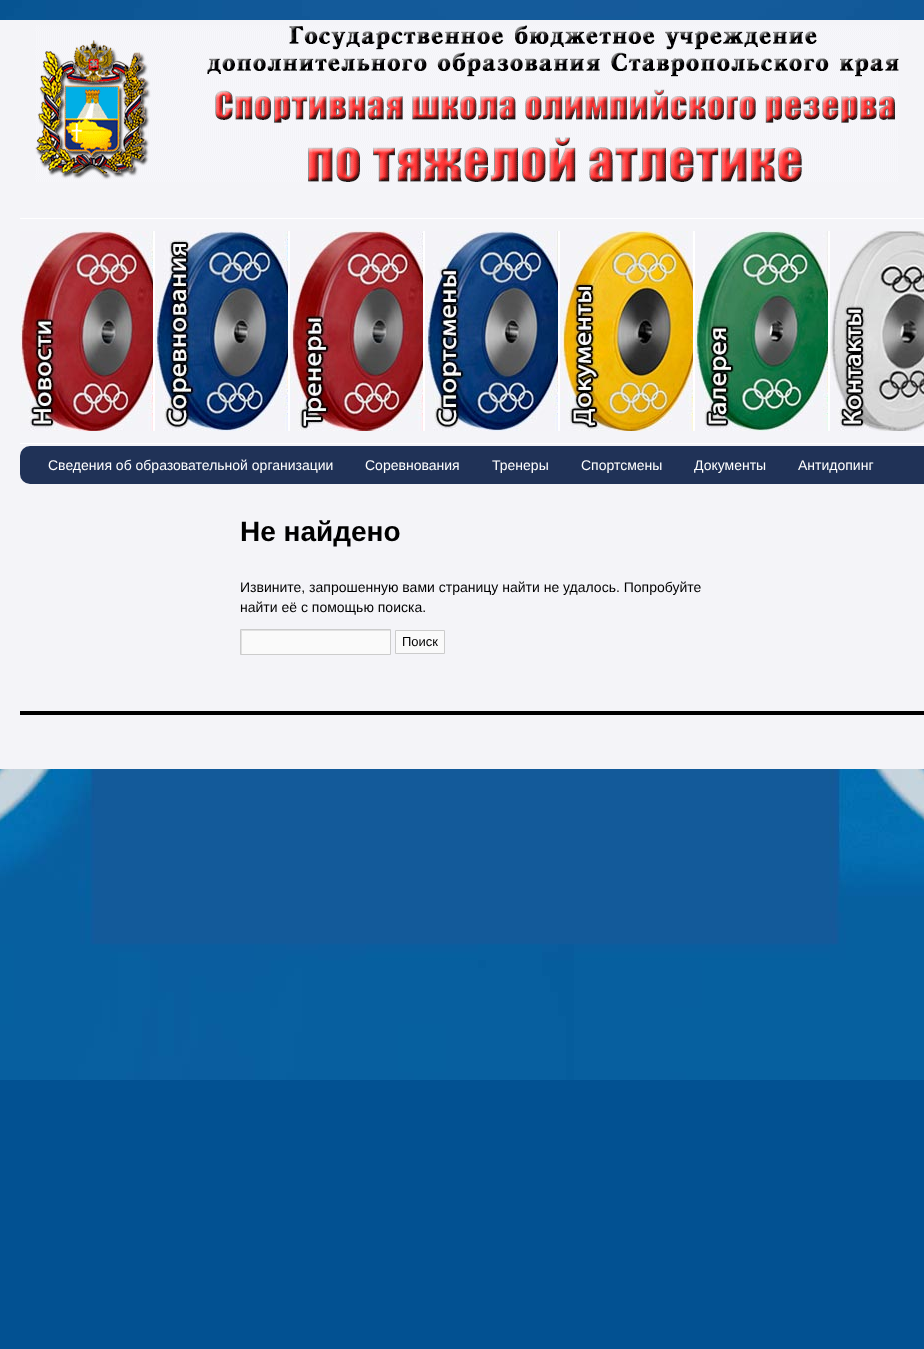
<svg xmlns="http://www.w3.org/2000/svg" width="924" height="1349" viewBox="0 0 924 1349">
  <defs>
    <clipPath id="clip1"><path d="M241 630h149v24H241z"/></clipPath>
  </defs>
  <rect width="100%" height="100%" fill="#025192"/>
  <image x="0" y="0" width="924" height="1080" href="img/1.png"/>
  <path d="M0 20h924v749H0z" fill="#f4f4f8"/>
  <image x="35" y="25" width="864" height="157" href="img/2.png"/>
  <path d="M20 218h904v1H20z" fill="#fff"/>
  <path d="M20 443h904v1H20z" fill="#fff"/>
  <image x="20" y="231" width="133" height="200" href="img/3.png"/>
  <path d="M153 231h2v200H153z" fill="#fff"/>
  <image x="155" y="231" width="133" height="200" href="img/4.png"/>
  <path d="M288 231h2v200H288z" fill="#fff"/>
  <image x="290" y="231" width="133" height="200" href="img/5.png"/>
  <path d="M423 231h2v200H423z" fill="#fff"/>
  <image x="425" y="231" width="133" height="200" href="img/6.png"/>
  <path d="M558 231h2v200H558z" fill="#fff"/>
  <image x="560" y="231" width="133" height="200" href="img/7.png"/>
  <path d="M693 231h2v200H693z" fill="#fff"/>
  <image x="695" y="231" width="133" height="200" href="img/8.png"/>
  <path d="M828 231h2v200H828z" fill="#fff"/>
  <image x="830" y="231" width="94" height="200" href="img/9.png"/>
  <rect x="20" y="446" width="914" height="38" rx="10" fill="#203257"/>
  <path d="M242 631h148v23H242z" fill="#fafafa"/>
  <g clip-path="url(#clip1)">
    <path d="M142 531H489V753H142ZM242 631H391V655H242Z" fill="#e1e1e1" fill-rule="evenodd"/>
  </g>
  <path d="M240.5 629.5h150v25H240.5z" fill="none" stroke="#ccc"/>
  <path d="M395.5 630.5h49v23H395.5z" fill="#fafafa" stroke="#ccc"/>
  <path d="M20 711h904v4H20z" fill="#000"/>
  <g font-family="Liberation Sans" font-size="14" fill="#fff">
    <text x="48" y="470">Сведения об образовательной организации</text>
    <text x="365" y="470">Соревнования</text>
    <text x="492" y="470">Тренеры</text>
    <text x="581" y="470">Спортсмены</text>
    <text x="694" y="470">Документы</text>
    <text x="798" y="470">Антидопинг</text>
  </g>
  <text x="240" y="541" font-family="Liberation Sans" font-size="28" font-weight="bold" fill="#000">Не найдено</text>
  <g font-family="Liberation Sans" font-size="14" fill="#000">
    <text x="240" y="592">Извините, запрошенную вами страницу найти не удалось. Попробуйте</text>
    <text x="240" y="612">найти её с помощью поиска.</text>
  </g>
  <text x="402" y="646" font-family="Liberation Sans" font-size="13" fill="#000">Поиск</text>
</svg>
